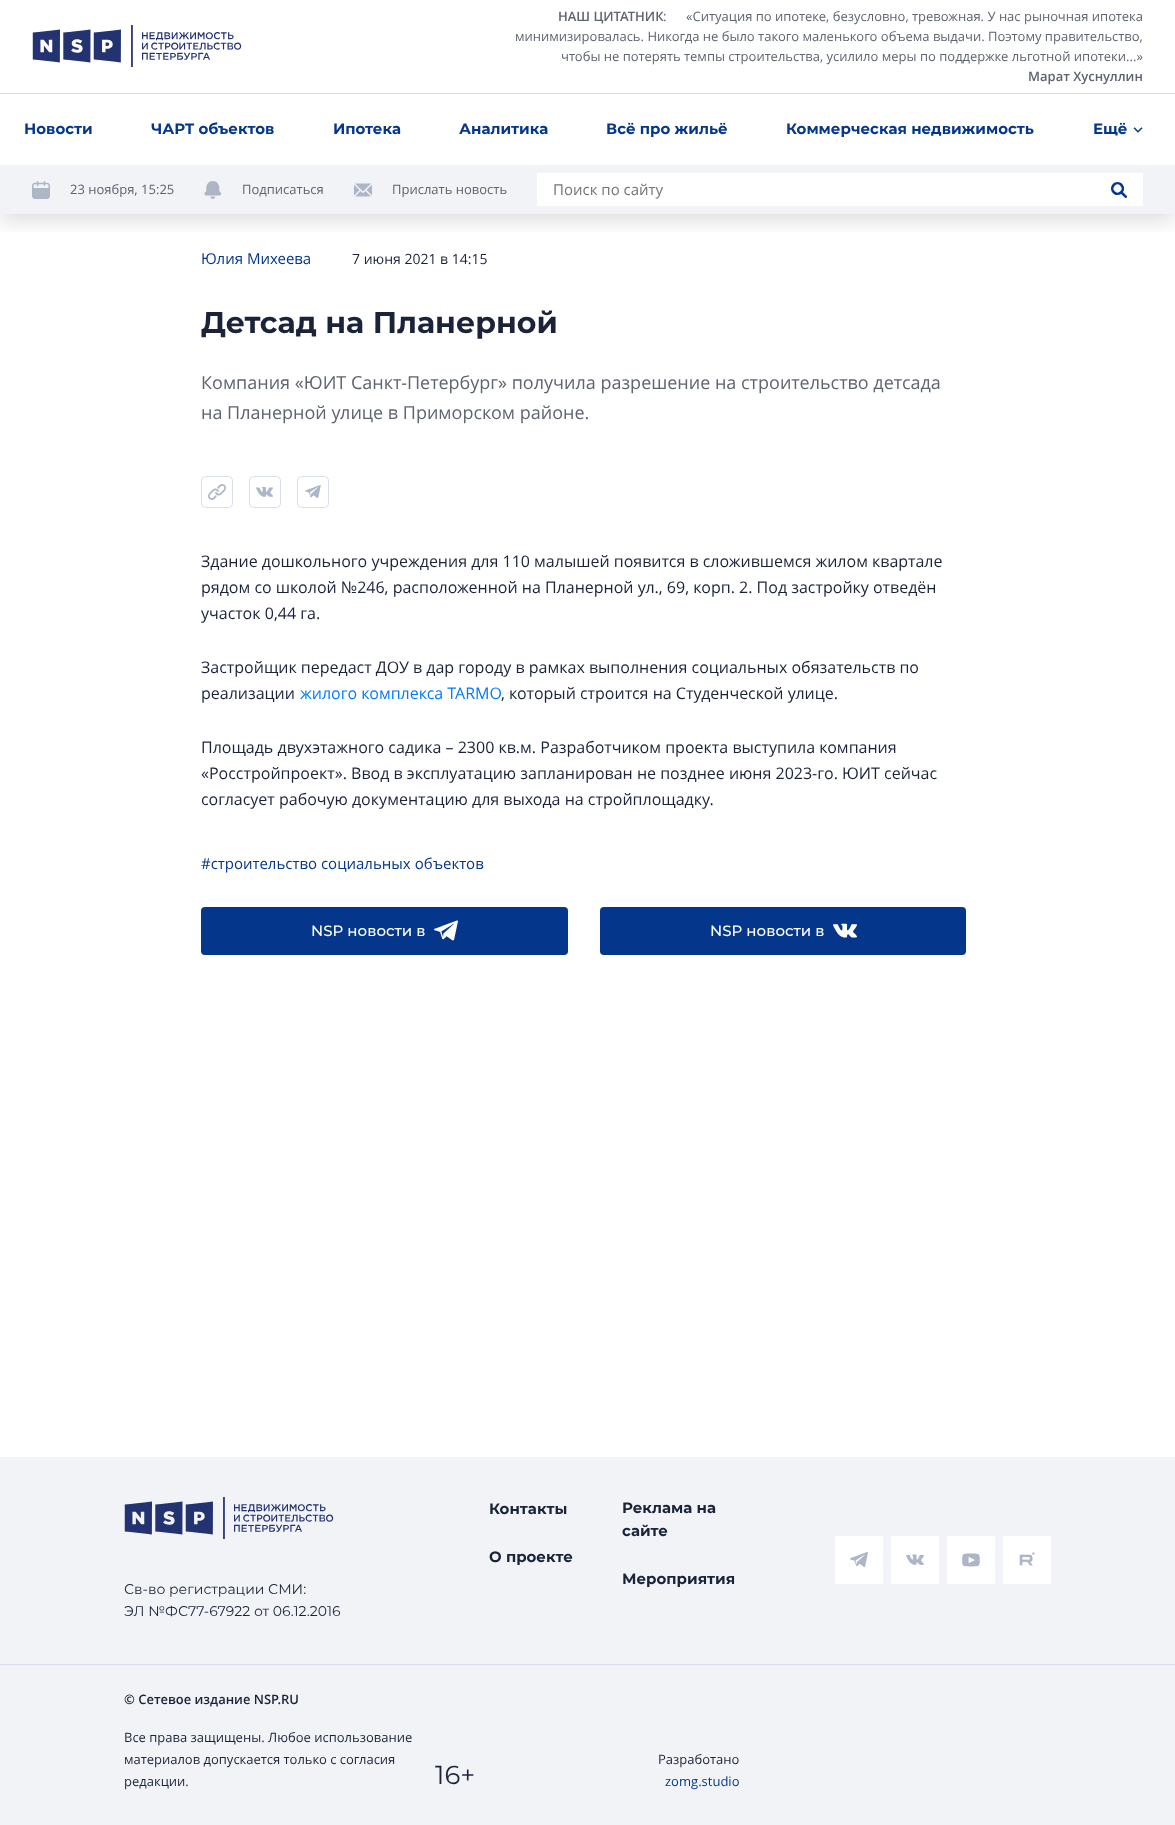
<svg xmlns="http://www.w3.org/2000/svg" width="1175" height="1825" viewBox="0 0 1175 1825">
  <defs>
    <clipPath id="clip1"><path d="M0 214h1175v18H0z"/></clipPath>
  </defs>
  <rect width="100%" height="100%" fill="#fff"/>
  <g clip-path="url(#clip1)">
    <path d="M0 8h1175v214H0z" fill="#0000001f" filter="blur(10px)"/>
  </g>
  <path d="M0 93h1175v1H0z" fill="#d7ddea"/>
  <image x="32" y="25" width="210" height="42" href="img/1.png"/>
  <image x="1133" y="127" width="10" height="6" href="img/2.png"/>
  <path d="M0 165h1175v49H0z" fill="#f1f3f7"/>
  <image x="32" y="181" width="18" height="18" href="img/3.png"/>
  <image x="204" y="181" width="17" height="18" href="img/4.png"/>
  <image x="354" y="183" width="18" height="14" href="img/5.png"/>
  <path d="M537 173h606v33H537z" fill="#fff"/>
  <image x="1111" y="182" width="16" height="16" href="img/6.png"/>
  <image x="201" y="476" width="32" height="32" href="img/7.png"/>
  <image x="249" y="476" width="32" height="32" href="img/8.png"/>
  <image x="297" y="476" width="32" height="32" href="img/9.png"/>
  <rect x="201" y="907" width="367" height="48" rx="4" fill="#04378b"/>
  <image x="434" y="920" width="24" height="21" href="img/10.png"/>
  <rect x="600" y="907" width="366" height="48" rx="4" fill="#04378b"/>
  <image x="833" y="923" width="24" height="15" href="img/11.png"/>
  <path d="M0 1457h1175v368H0z" fill="#f1f3f7"/>
  <path d="M0 1664h1175v1H0z" fill="#d7ddea"/>
  <path d="M835 1536h48v48H835z" fill="#fff"/>
  <image x="850" y="1552" width="18" height="15" href="img/12.png"/>
  <path d="M891 1536h48v48H891z" fill="#fff"/>
  <image x="906" y="1554" width="18" height="11" href="img/13.png"/>
  <path d="M947 1536h48v48H947z" fill="#fff"/>
  <image x="962" y="1553" width="18" height="14" href="img/14.png"/>
  <path d="M1003 1536h48v48H1003z" fill="#fff"/>
  <image x="1019" y="1552" width="16" height="14" href="img/15.png"/>
  <image x="124" y="1497" width="210" height="42" href="img/16.png"/>
  <text x="558" y="21" font-family="Open Sans" font-size="13" font-weight="600" fill="#5e6470">НАШ ЦИТАТНИК</text>
  <g font-family="Open Sans" font-size="13" fill="#5e6470">
    <text x="663" y="21">:</text>
    <text x="686" y="21">«Ситуация по ипотеке, безусловно, тревожная. У нас рыночная ипотека</text>
    <text x="515" y="41">минимизировалась. Никогда не было такого маленького объема выдачи. Поэтому правительство,</text>
    <text x="561" y="61">чтобы не потерять темпы строительства, усилило меры по поддержке льготной ипотеки...»</text>
  </g>
  <text x="1028" y="81" font-family="Open Sans" font-size="13" font-weight="600" fill="#5e6470">Марат Хуснуллин</text>
  <g font-family="Montserrat" font-size="15" font-weight="bold" fill="#04378b">
    <text x="24" y="134">Новости</text>
    <text x="151" y="134">ЧАРТ объектов</text>
    <text x="333" y="134">Ипотека</text>
    <text x="459" y="134">Аналитика</text>
    <text x="606" y="134">Всё про жильё</text>
    <text x="786" y="134">Коммерческая недвижимость</text>
    <text x="1093" y="134">Ещё</text>
  </g>
  <g font-family="'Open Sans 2'" font-size="13" fill="#5e6470">
    <text x="70" y="194">23 ноября, 15:25</text>
    <text x="242" y="194">Подписаться</text>
    <text x="392" y="194">Прислать новость</text>
  </g>
  <text x="553" y="195" font-family="Open Sans" font-size="15" fill="#757575">Поиск по сайту</text>
  <text x="201" y="264" font-family="Open Sans" font-size="15" fill="#04378b">Юлия Михеева</text>
  <text x="352" y="264" font-family="Open Sans" font-size="14" fill="#1a233a">7 июня 2021 в 14:15</text>
  <text x="201" y="333" font-family="Montserrat" font-size="30" font-weight="bold" fill="#1a233a">Детсад на Планерной</text>
  <g font-family="Open Sans" font-size="18" fill="#5e6470">
    <text x="201" y="389">Компания «ЮИТ Санкт-Петербург» получила разрешение на строительство детсада</text>
    <text x="201" y="419">на Планерной улице в Приморском районе.</text>
  </g>
  <g font-family="Open Sans" font-size="16" fill="#1a233a">
    <text x="201" y="567">Здание дошкольного учреждения для 110 малышей появится в сложившемся жилом квартале</text>
    <text x="201" y="593">рядом со школой №246, расположенной на Планерной ул., 69, корп. 2. Под застройку отведён</text>
    <text x="201" y="619">участок 0,44 га.</text>
    <text x="201" y="673">Застройщик передаст ДОУ в дар городу в рамках выполнения социальных обязательств по</text>
    <text x="201" y="699">реализации</text>
  </g>
  <text x="300" y="699" font-family="Open Sans" font-size="16" fill="#007bff">жилого комплекса TARMO</text>
  <g font-family="Open Sans" font-size="16" fill="#1a233a">
    <text x="501" y="699">, который строится на Студенческой улице.</text>
    <text x="201" y="753">Площадь двухэтажного садика – 2300 кв.м. Разработчиком проекта выступила компания</text>
    <text x="201" y="779">«Росстройпроект». Ввод в эксплуатацию запланирован не позднее июня 2023-го. ЮИТ сейчас</text>
    <text x="201" y="805">согласует рабочую документацию для выхода на стройплощадку.</text>
  </g>
  <text x="201" y="869" font-family="Open Sans" font-size="15" fill="#04378b">#строительство социальных объектов</text>
  <g font-family="Montserrat" font-size="15" font-weight="500" fill="#fff">
    <text x="311" y="936">NSP новости в</text>
    <text x="710" y="936">NSP новости в</text>
  </g>
  <g font-family="Montserrat" font-size="15" font-weight="bold" fill="#1a233a">
    <text x="489" y="1514">Контакты</text>
    <text x="622" y="1513">Реклама на</text>
    <text x="622" y="1536">сайте</text>
    <text x="489" y="1562">О проекте</text>
    <text x="622" y="1584">Мероприятия</text>
  </g>
  <g font-family="Montserrat" font-size="14" fill="#1a233a">
    <text x="124" y="1594">Св-во регистрации СМИ:</text>
    <text x="124" y="1616">ЭЛ №ФС77-67922 от 06.12.2016</text>
  </g>
  <text x="124" y="1704" font-family="Open Sans" font-size="13" font-weight="600" fill="#1a233a">© Сетевое издание NSP.RU</text>
  <g font-family="Open Sans" font-size="13" fill="#1a233a">
    <text x="124" y="1742">Все права защищены. Любое использование</text>
    <text x="124" y="1764">материалов допускается только с согласия</text>
    <text x="124" y="1786">редакции.</text>
  </g>
  <text x="435" y="1784" font-family="Montserrat" font-size="26" fill="#1a233a">16+</text>
  <text x="658" y="1764" font-family="Open Sans" font-size="13" fill="#1a233a">Разработано</text>
  <text x="665" y="1786" font-family="Open Sans" font-size="13" fill="#04378b">zomg.studio</text>
</svg>
